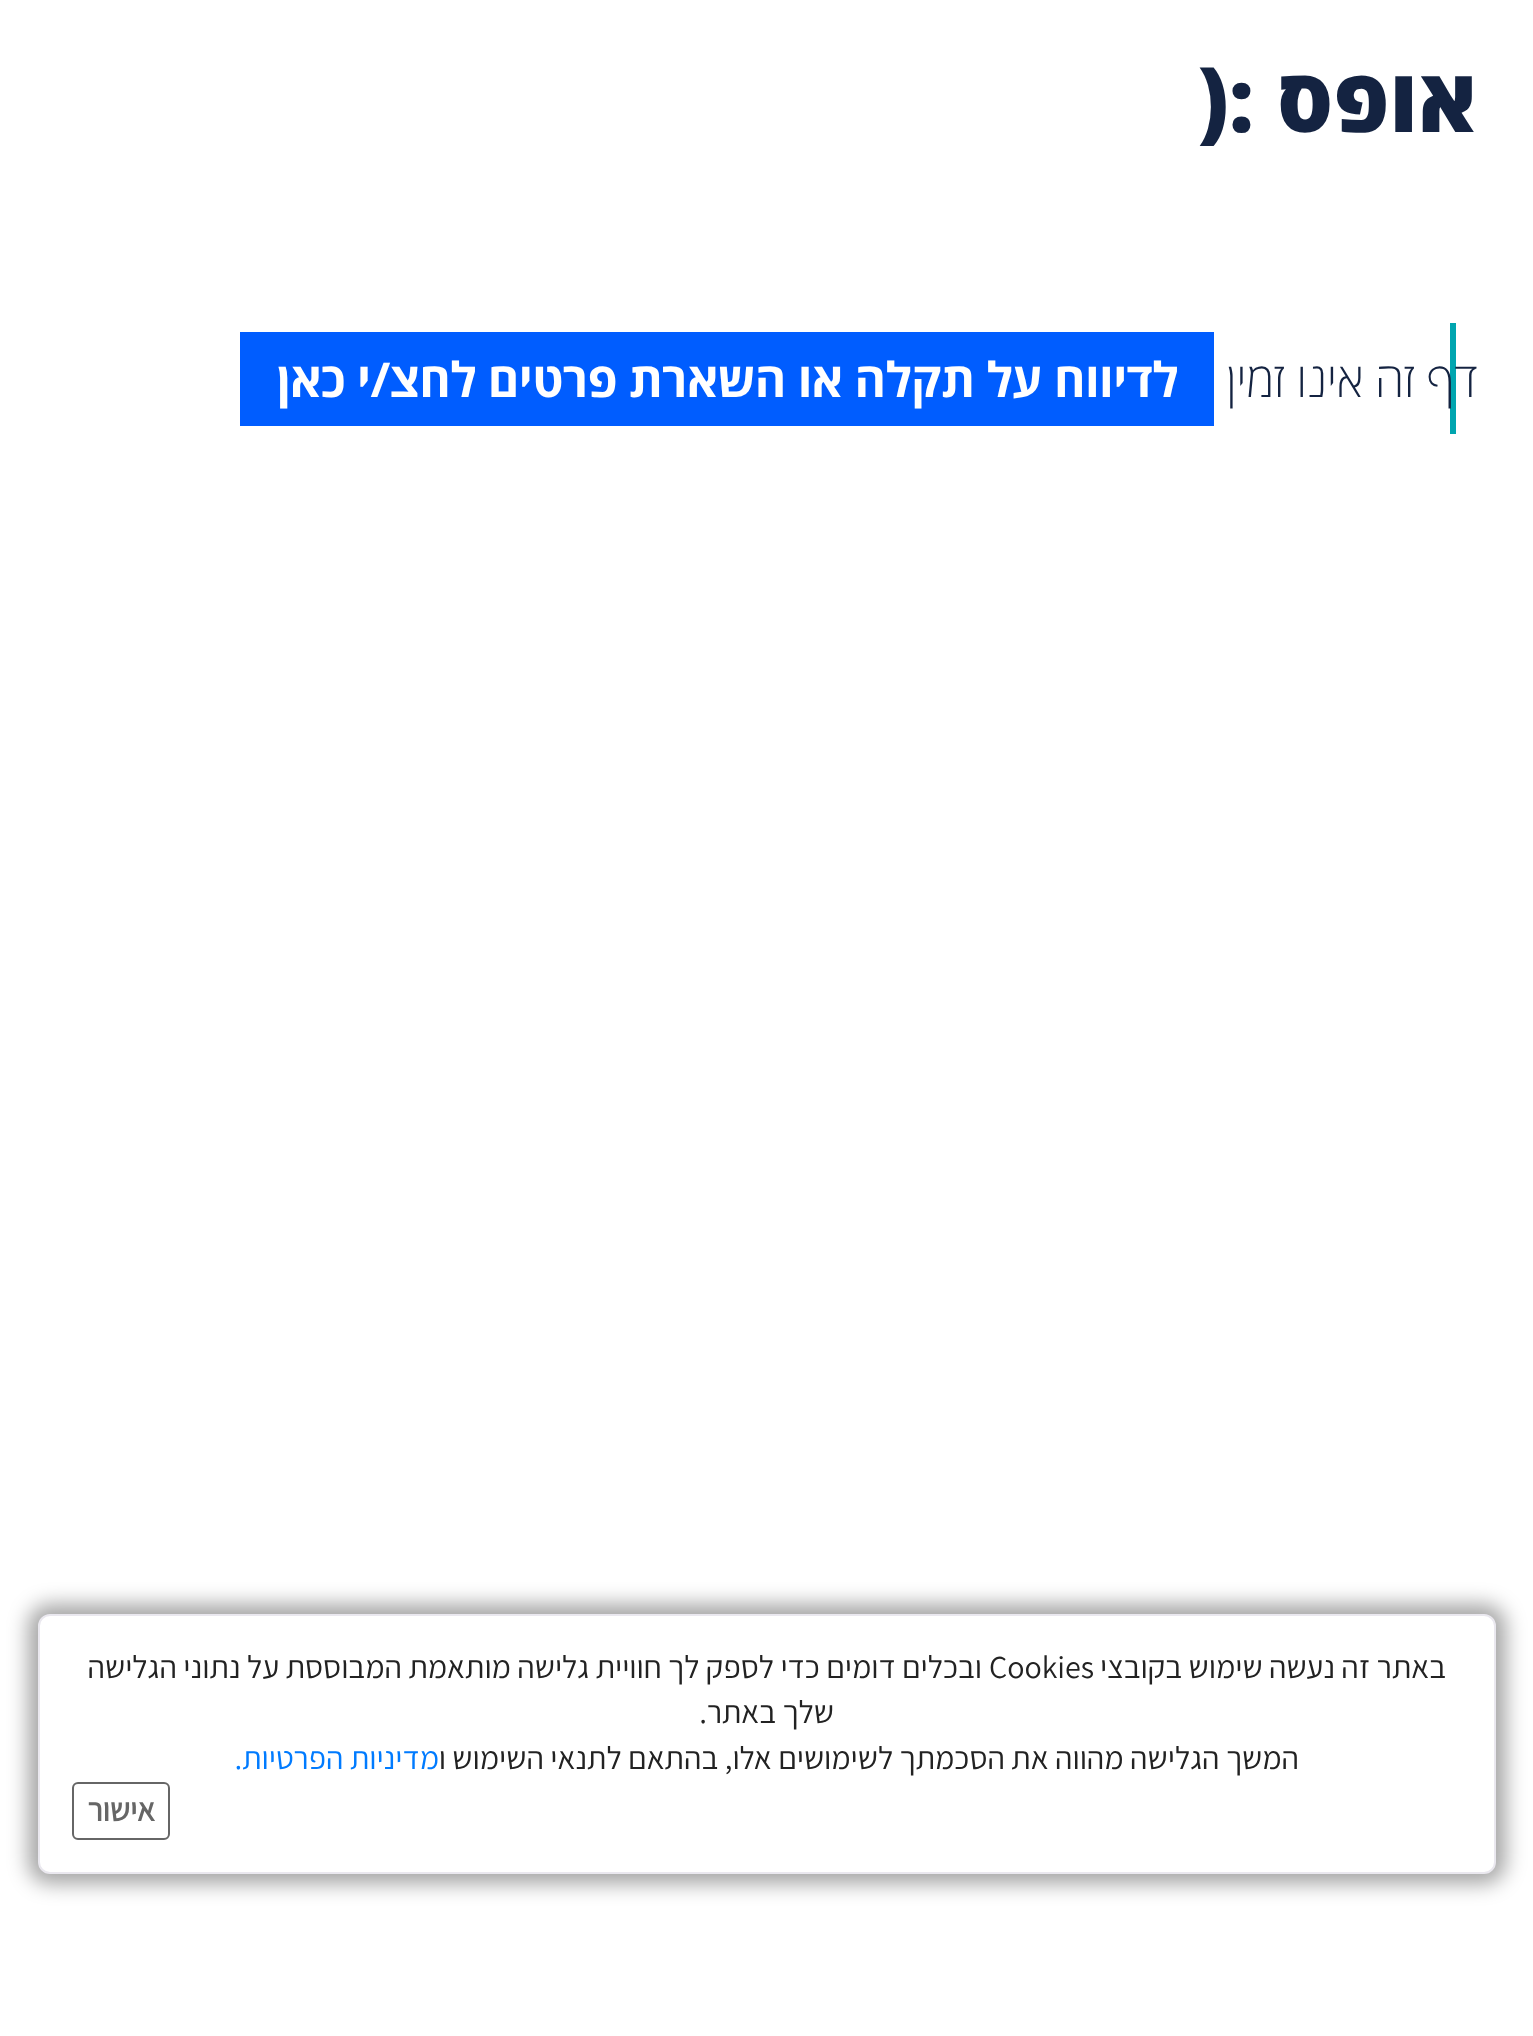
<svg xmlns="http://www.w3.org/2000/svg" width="1533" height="2036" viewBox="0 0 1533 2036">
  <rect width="100%" height="100%" fill="#fff"/>
  <path d="M1450 323h6v111H1450z" fill="#00a5af"/>
  <path d="M240 332h974v94H240z" fill="#005dff"/>
  <rect x="28" y="1604" width="1478" height="280" rx="22" fill="#00000059" filter="blur(10px)"/>
  <rect x="39" y="1615" width="1456" height="258" rx="11" fill="#fff" stroke="#eae8ef" stroke-width="2"/>
  <rect x="73" y="1783" width="96" height="56" rx="5" fill="none" stroke="#666" stroke-width="2"/>
  <text x="1584" y="323" transform="rotate(90 1584 323)" font-family="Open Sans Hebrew" font-size="27" font-weight="bold" direction="rtl" fill="#00a5af">גלול מטה</text>
  <text x="1477" y="132" font-family="Open Sans Hebrew" font-size="88" font-weight="800" direction="rtl" fill="#142341">אופס :(</text>
  <text x="1477" y="397" font-family="Open Sans Hebrew" font-size="48" font-weight="300" letter-spacing="-0.5" direction="rtl" fill="#142341">דף זה אינו זמין</text>
  <text x="1178" y="397" font-family="Open Sans Hebrew" font-size="48" font-weight="bold" letter-spacing="-0.5" direction="rtl" fill="#fff">לדיווח על תקלה או השארת פרטים לחצ/י כאן</text>
  <text x="1446" y="1678" font-family="Assistant" font-size="32" font-weight="200" direction="rtl" fill="#222">באתר זה נעשה שימוש בקובצי</text>
  <text x="989" y="1678" font-family="Assistant" font-size="32" font-weight="200" fill="#222">Cookies</text>
  <g font-family="Assistant" font-size="32" font-weight="200" direction="rtl" fill="#222">
    <text x="982" y="1678">ובכלים דומים כדי לספק לך חוויית גלישה מותאמת המבוססת על נתוני הגלישה</text>
    <text x="834" y="1723">שלך באתר.</text>
    <text x="1299" y="1769">המשך הגלישה מהווה את הסכמתך לשימושים אלו, בהתאם לתנאי השימוש ו</text>
  </g>
  <text x="439" y="1769" font-family="Assistant" font-size="32" font-weight="200" direction="rtl" fill="#007bff">מדיניות הפרטיות.</text>
  <text x="155" y="1821" font-family="Assistant" font-size="32" font-weight="bold" direction="rtl" fill="#666">אישור</text>
</svg>
